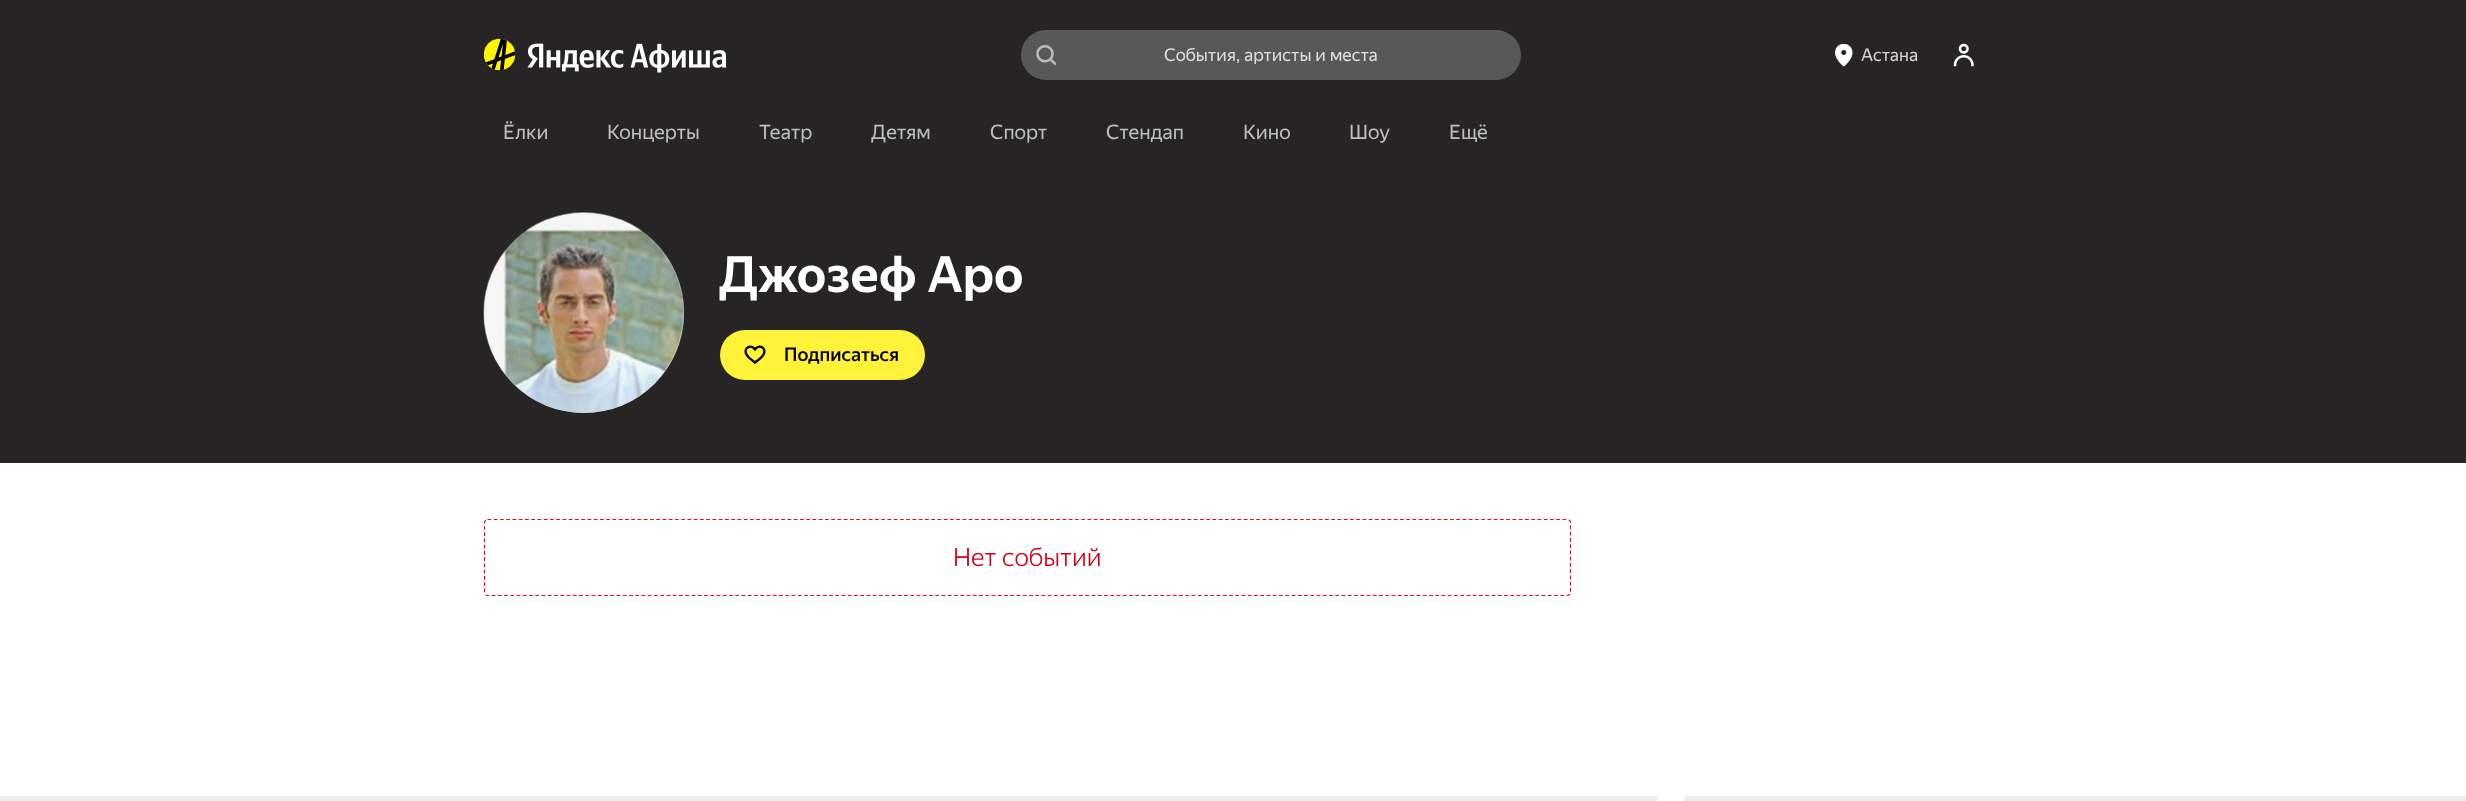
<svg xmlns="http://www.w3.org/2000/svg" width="2466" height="801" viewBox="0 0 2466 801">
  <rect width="100%" height="100%" fill="#fff"/>
  <path d="M0 0h2466v463H0z" fill="#262424"/>
  <image x="484" y="39" width="32" height="32" href="img/1.png"/>
  <image x="527" y="43" width="200" height="30" href="img/2.png"/>
  <image x="1036" y="45" width="20" height="20" href="img/3.png"/>
  <image x="1835" y="44" width="18" height="23" href="img/4.png"/>
  <image x="1953" y="43" width="21" height="24" href="img/5.png"/>
  <circle cx="584" cy="313" r="100" fill="#d8d8d8"/>
  <image x="483" y="212" width="201" height="201" href="img/6.png"/>
  <rect x="720" y="330" width="205" height="50" rx="25" fill="#fef339"/>
  <path d="M755 362.5C752.5 360.5 748 357.5 746.5 354.5C743 348 751 343.5 755 349.5C759 343.5 767 348 763.5 354.5C762 357.5 757.5 360.5 755 362.5Z" fill="none" stroke="#000" stroke-width="2.3" stroke-linecap="square" stroke-linejoin="round"/>
  <path d="M487.5 519.5H1567.5C1569 519.5 1570.5 521 1570.5 522.5V592.5C1570.5 594 1569 595.5 1567.5 595.5H487.5C486 595.5 484.5 594 484.5 592.5V522.5C484.5 521 486 519.5 487.5 519.5Z" fill="none" stroke="#df0b22" stroke-width="1.2" stroke-dasharray="3.75 2.5"/>
  <path d="M0 796h2466v5H0z" fill="#ededed"/>
  <path d="M1478 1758L1646 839L1658 796H1685L1508 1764Z" fill="#fff" fill-rule="evenodd"/>
  <text x="1164" y="61" font-family="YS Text" font-size="17.5" fill="#d4d3d3">События, артисты и места</text>
  <rect x="1021" y="30" width="500" height="50" rx="25" fill="#ffffff3d"/>
  <text x="1861" y="61" font-family="YS Text" font-size="17.5" fill="#d4d3d3">Астана</text>
  <g font-family="YS Text" font-size="20" fill="#bebdbd">
    <text x="503" y="139">Ёлки</text>
    <text x="607" y="139">Концерты</text>
    <text x="759" y="139">Театр</text>
    <text x="871" y="139">Детям</text>
    <text x="990" y="139">Спорт</text>
    <text x="1106" y="139">Стендап</text>
    <text x="1243" y="139">Кино</text>
    <text x="1349" y="139">Шоу</text>
    <text x="1449" y="139">Ещё</text>
  </g>
  <text x="719" y="292" font-family="YS Text" font-size="50" font-weight="bold" fill="#fff">Джозеф Аро</text>
  <text x="784" y="361" font-family="YS Text" font-size="18.75" font-weight="500" fill="#000">Подписаться</text>
  <text x="953" y="566" font-family="YS Text" font-size="25" font-weight="300" fill="#d0021b">Нет событий</text>
</svg>
